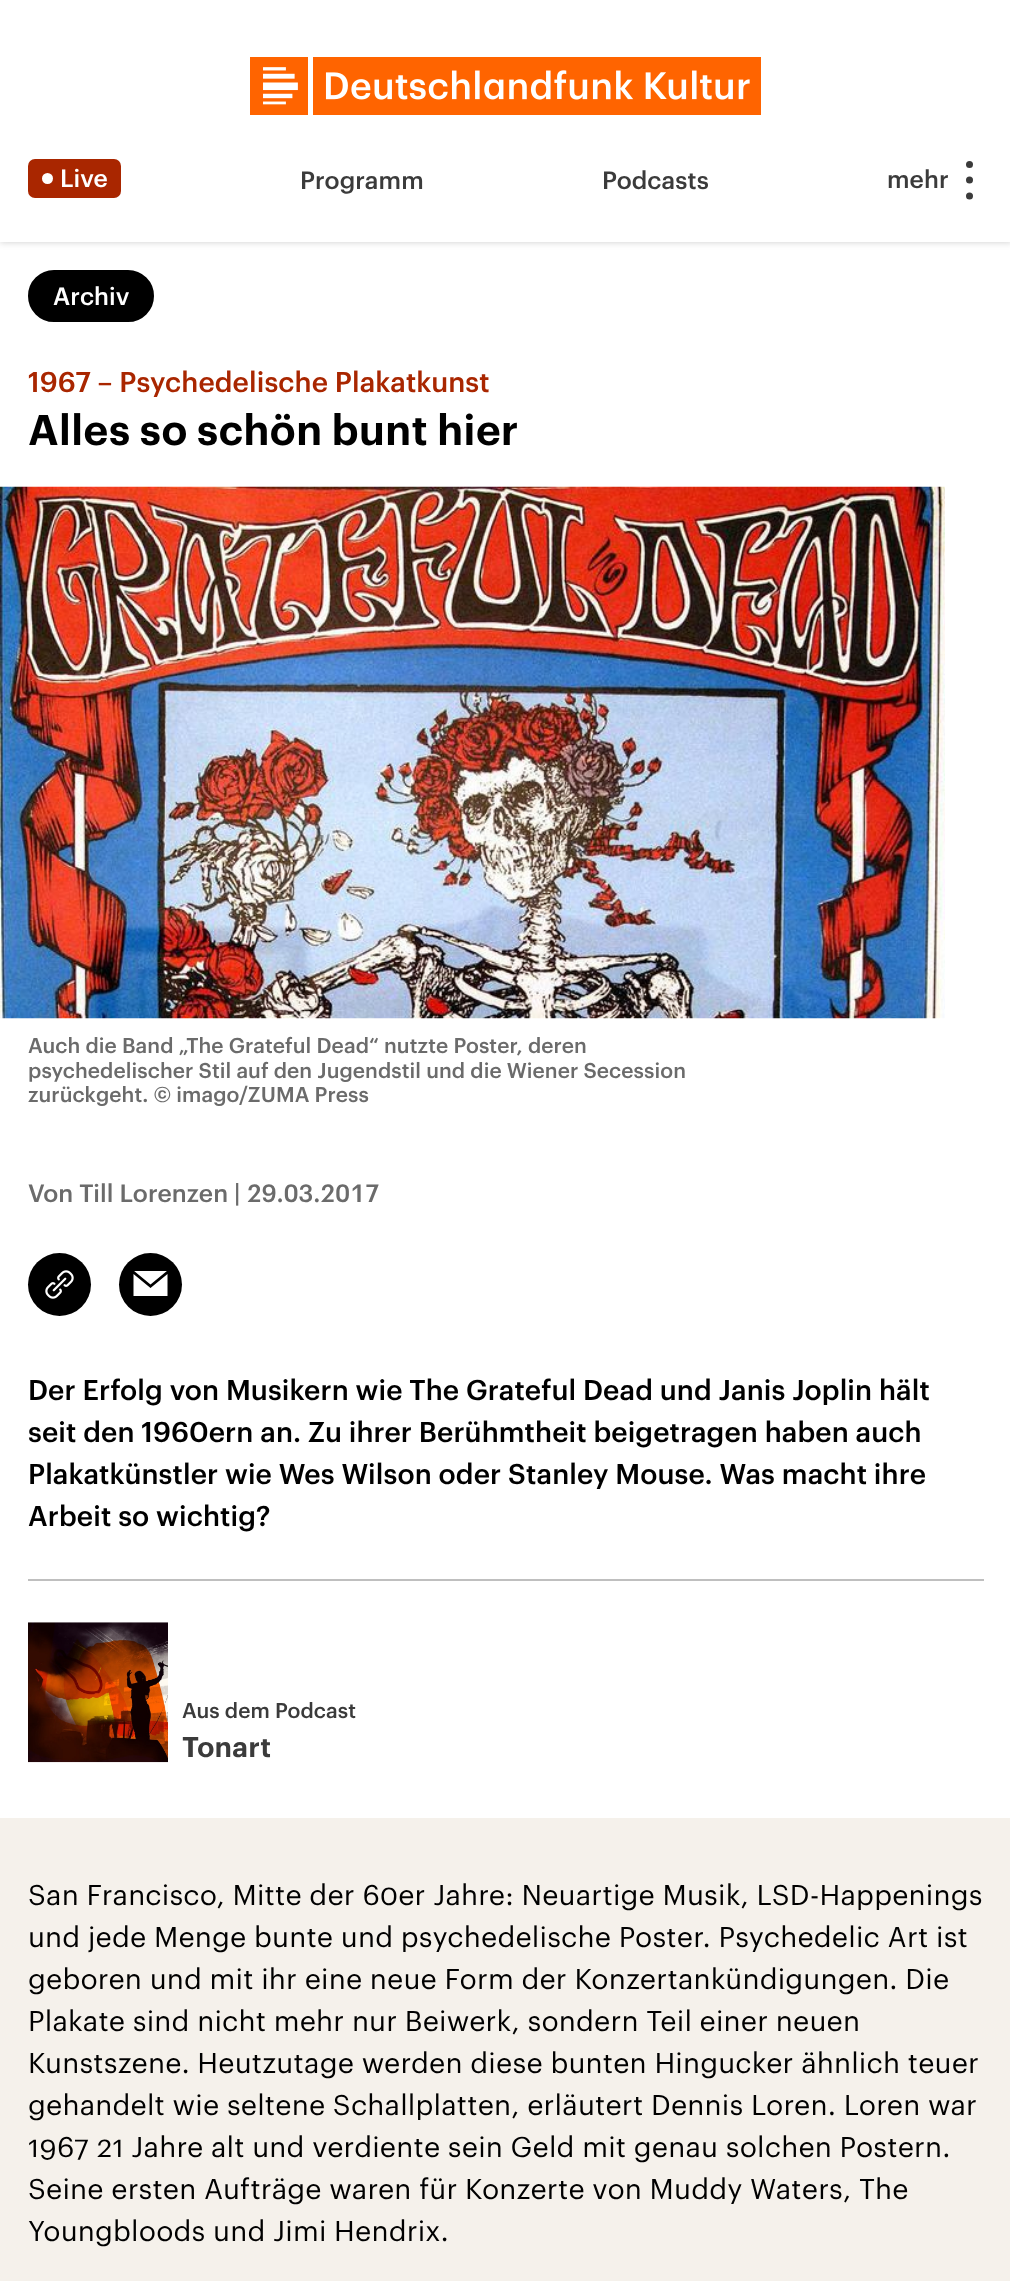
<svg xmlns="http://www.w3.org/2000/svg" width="1010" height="2281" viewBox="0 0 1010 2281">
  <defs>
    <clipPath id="clip1"><path d="M133 1271h35v26H133z"/></clipPath>
  </defs>
  <rect width="100%" height="100%" fill="#f5f1eb"/>
  <path d="M0 242h1010v1576H0z" fill="#fff"/>
  <path d="M0 0h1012v242H0z" fill="#00000033" filter="blur(3.5px)"/>
  <path d="M0 0h1010v242H0z" fill="#fff"/>
  <image x="250" y="57" width="511" height="58" href="img/1.png"/>
  <rect x="28" y="159" width="93" height="39" rx="7" fill="#a92600"/>
  <circle cx="47.5" cy="178.5" r="5.5" fill="#fff"/>
  <circle cx="969.5" cy="164.5" r="3.5" fill="#3b3b3b"/>
  <circle cx="969.5" cy="180" r="3.5" fill="#3b3b3b"/>
  <circle cx="969.5" cy="196" r="3.5" fill="#3b3b3b"/>
  <rect x="30" y="272" width="122" height="48" rx="24" fill="#000" stroke="#000" stroke-width="4"/>
  <image x="0" y="486" width="945" height="533" href="img/2.png"/>
  <circle cx="59.5" cy="1284.5" r="31.5" fill="#000"/>
  <image x="45" y="1270" width="29" height="29" href="img/3.png"/>
  <circle cx="150.5" cy="1284.5" r="31.5" fill="#000"/>
  <g clip-path="url(#clip1)">
    <path d="M150.5 1284.5L133.5 1270.5H167.5ZM150.5 1288L133.5 1274V1296H167.5V1274Z" fill="#fff"/>
  </g>
  <path d="M28 1579h956v2H28z" fill="#bfbfbf"/>
  <image x="28" y="1622" width="140" height="141" href="img/4.png"/>
  <text x="60" y="187" font-family="Graphik" font-size="24.5" font-weight="500" fill="#fff">Live</text>
  <g font-family="Graphik" font-size="24.5" font-weight="500" fill="#3b3b3b">
    <text x="300" y="189">Programm</text>
    <text x="602" y="189">Podcasts</text>
    <text x="887" y="188">mehr</text>
  </g>
  <text x="53" y="305" font-family="Graphik" font-size="24.5" font-weight="500" fill="#fff">Archiv</text>
  <text x="28" y="392" font-family="Graphik" font-size="28" font-weight="500" fill="#a92600">1967 – Psychedelische Plakatkunst</text>
  <text x="28" y="445" font-family="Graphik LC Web" font-size="42" font-weight="600" fill="#000">Alles so schön bunt hier</text>
  <g font-family="Graphik" font-size="21" font-weight="500" fill="#6b6b6b">
    <text x="28" y="1053">Auch die Band „The Grateful Dead“ nutzte Poster, deren</text>
    <text x="28" y="1078">psychedelischer Stil auf den Jugendstil und die Wiener Secession</text>
    <text x="28" y="1102">zurückgeht. © imago/ZUMA Press</text>
  </g>
  <text x="28" y="1202" font-family="Graphik" font-size="24.5" font-weight="500" fill="#6b6b6b">Von Till Lorenzen |</text>
  <text x="247" y="1202" font-family="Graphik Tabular" font-size="24.5" font-weight="500" fill="#6b6b6b">29.03.2017</text>
  <g font-family="Graphik" font-size="28" font-weight="500" fill="#000">
    <text x="28" y="1400">Der Erfolg von Musikern wie The Grateful Dead und Janis Joplin hält</text>
    <text x="28" y="1442">seit den 1960ern an. Zu ihrer Berühmtheit beigetragen haben auch</text>
    <text x="28" y="1484">Plakatkünstler wie Wes Wilson oder Stanley Mouse. Was macht ihre</text>
    <text x="28" y="1526">Arbeit so wichtig?</text>
  </g>
  <text x="182" y="1718" font-family="Graphik" font-size="21" font-weight="500" fill="#3b3b3b">Aus dem Podcast</text>
  <text x="182" y="1757" font-family="Graphik LC Web" font-size="28" font-weight="600" fill="#3b3b3b">Tonart</text>
  <text x="28" y="1905" font-family="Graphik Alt" font-size="28" letter-spacing="0.15" fill="#000">San Francisco, Mitte der 60er Jahre: Neuartige Musik, LSD-Happenings</text>
  <g font-family="Graphik" font-size="28" letter-spacing="0.15" fill="#000">
    <text x="28" y="1947">und jede Menge bunte und psychedelische Poster. Psychedelic Art ist</text>
    <text x="28" y="1989">geboren und mit ihr eine neue Form der Konzertankündigungen. Die</text>
    <text x="28" y="2031">Plakate sind nicht mehr nur Beiwerk, sondern Teil einer neuen</text>
    <text x="28" y="2073">Kunstszene. Heutzutage werden diese bunten Hingucker ähnlich teuer</text>
    <text x="28" y="2115">gehandelt wie seltene Schallplatten, erläutert Dennis Loren. Loren war</text>
  </g>
  <text x="28" y="2157" font-family="Graphik Alt" font-size="28" letter-spacing="0.15" fill="#000">1967 21 Jahre alt und verdiente sein Geld mit genau solchen Postern.</text>
  <g font-family="Graphik" font-size="28" letter-spacing="0.15" fill="#000">
    <text x="28" y="2199">Seine ersten Aufträge waren für Konzerte von Muddy Waters, The</text>
    <text x="28" y="2241">Youngbloods und Jimi Hendrix.</text>
  </g>
</svg>
